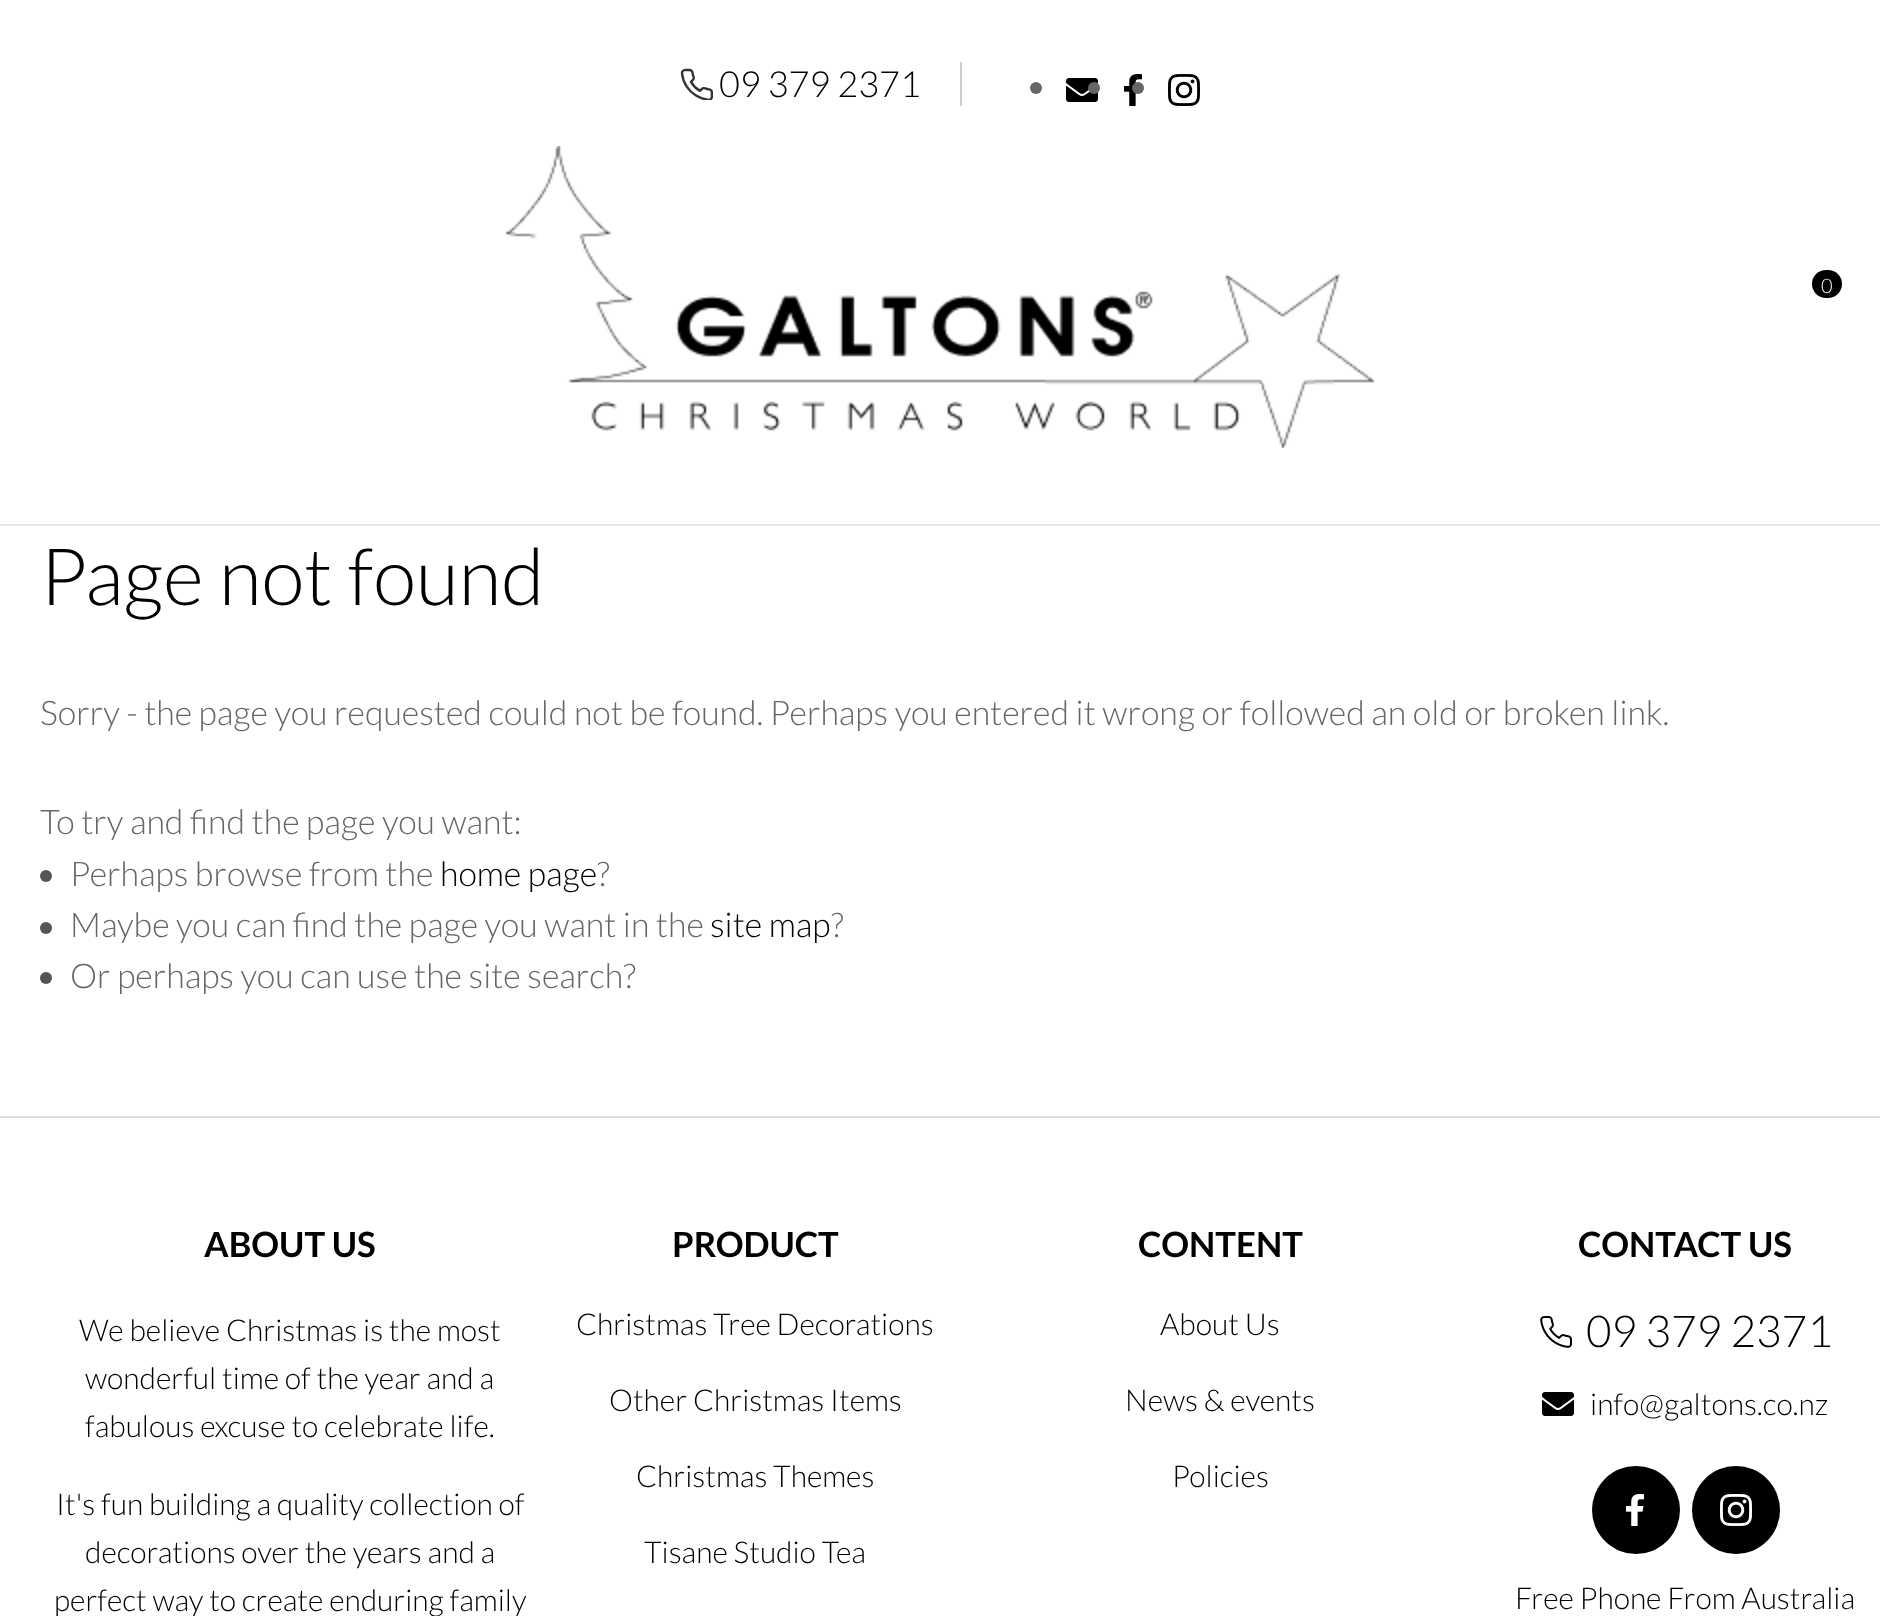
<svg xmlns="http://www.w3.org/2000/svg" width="1880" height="1616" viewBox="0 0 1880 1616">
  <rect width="100%" height="100%" fill="#fff"/>
  <path d="M960 62h2v44H960z" fill="#ccc"/>
  <image x="680" y="68" width="34" height="32" href="img/1.png"/>
  <circle cx="1036" cy="88" r="6" fill="#666"/>
  <image x="1066" y="78" width="32" height="24" href="img/2.png"/>
  <circle cx="1094" cy="88" r="6" fill="#666"/>
  <image x="1124" y="74" width="18" height="32" href="img/3.png"/>
  <circle cx="1138" cy="88" r="6" fill="#666"/>
  <image x="1168" y="74" width="32" height="32" href="img/4.png"/>
  <image x="506" y="146" width="868" height="302" href="img/5.png"/>
  <rect x="1812" y="270" width="30" height="28" rx="14" fill="#000"/>
  <path d="M0 524h1880v2H0z" fill="#e6e6e6"/>
  <circle cx="46" cy="876" r="6" fill="#555"/>
  <circle cx="46" cy="928" r="6" fill="#555"/>
  <circle cx="46" cy="978" r="6" fill="#555"/>
  <path d="M0 1116h1880v2H0z" fill="#ddd"/>
  <image x="1540" y="1316" width="32" height="32" href="img/6.png"/>
  <image x="1542" y="1392" width="32" height="24" href="img/2.png"/>
  <circle cx="1636" cy="1510" r="44" fill="#000"/>
  <image x="1626" y="1494" width="18" height="32" href="img/7.png"/>
  <circle cx="1736" cy="1510" r="44" fill="#000"/>
  <image x="1720" y="1494" width="32" height="32" href="img/8.png"/>
  <text x="719" y="97" font-family="Lato" font-size="36" font-weight="300" fill="#000">09 379 2371</text>
  <text x="1821" y="293" font-family="Lato" font-size="20" font-weight="300" fill="#f8f8f8">0</text>
  <text x="40" y="605" font-family="Lato" font-size="79" font-weight="300" fill="#000">Page not found</text>
  <g font-family="Lato" font-size="34" font-weight="300" fill="#666">
    <text x="40" y="725">Sorry - the page you requested could not be found. Perhaps you entered it wrong or followed an old or broken link.</text>
    <text x="40" y="834">To try and find the page you want:</text>
    <text x="70" y="886">Perhaps browse from the</text>
  </g>
  <text x="440" y="886" font-family="Lato" font-size="34" font-weight="300" fill="#000">home page</text>
  <g font-family="Lato" font-size="34" font-weight="300" fill="#666">
    <text x="597" y="886">?</text>
    <text x="70" y="937">Maybe you can find the page you want in the</text>
  </g>
  <text x="710" y="937" font-family="Lato" font-size="34" font-weight="300" fill="#000">site map</text>
  <g font-family="Lato" font-size="34" font-weight="300" fill="#666">
    <text x="831" y="937">?</text>
    <text x="70" y="988">Or perhaps you can use the site search?</text>
  </g>
  <text x="204" y="1257" font-family="Lato" font-size="34.75" font-weight="bold" fill="#000">ABOUT US</text>
  <g font-family="Lato" font-size="30" font-weight="300" fill="#000">
    <text x="79" y="1341">We believe Christmas is the most</text>
    <text x="85" y="1389">wonderful time of the year and a</text>
    <text x="85" y="1437">fabulous excuse to celebrate life.</text>
    <text x="56" y="1515">It's fun building a quality collection of</text>
    <text x="85" y="1563">decorations over the years and a</text>
    <text x="54" y="1611">perfect way to create enduring family</text>
  </g>
  <text x="672" y="1257" font-family="Lato" font-size="34.75" font-weight="bold" fill="#000">PRODUCT</text>
  <g font-family="Lato" font-size="30" font-weight="300" fill="#000">
    <text x="576" y="1335">Christmas Tree Decorations</text>
    <text x="609" y="1411">Other Christmas Items</text>
    <text x="636" y="1487">Christmas Themes</text>
    <text x="644" y="1563">Tisane Studio Tea</text>
  </g>
  <text x="1138" y="1257" font-family="Lato" font-size="34.75" font-weight="bold" fill="#000">CONTENT</text>
  <g font-family="Lato" font-size="30" font-weight="300" fill="#000">
    <text x="1160" y="1335">About Us</text>
    <text x="1125" y="1411">News &amp; events</text>
    <text x="1172" y="1487">Policies</text>
  </g>
  <text x="1578" y="1257" font-family="Lato" font-size="34.75" font-weight="bold" fill="#000">CONTACT US</text>
  <text x="1586" y="1347" font-family="Lato" font-size="44" font-weight="300" fill="#000">09 379 2371</text>
  <g font-family="Lato" font-size="30" font-weight="300" fill="#000">
    <text x="1590" y="1415">info@galtons.co.nz</text>
    <text x="1515" y="1609">Free Phone From Australia</text>
  </g>
</svg>
